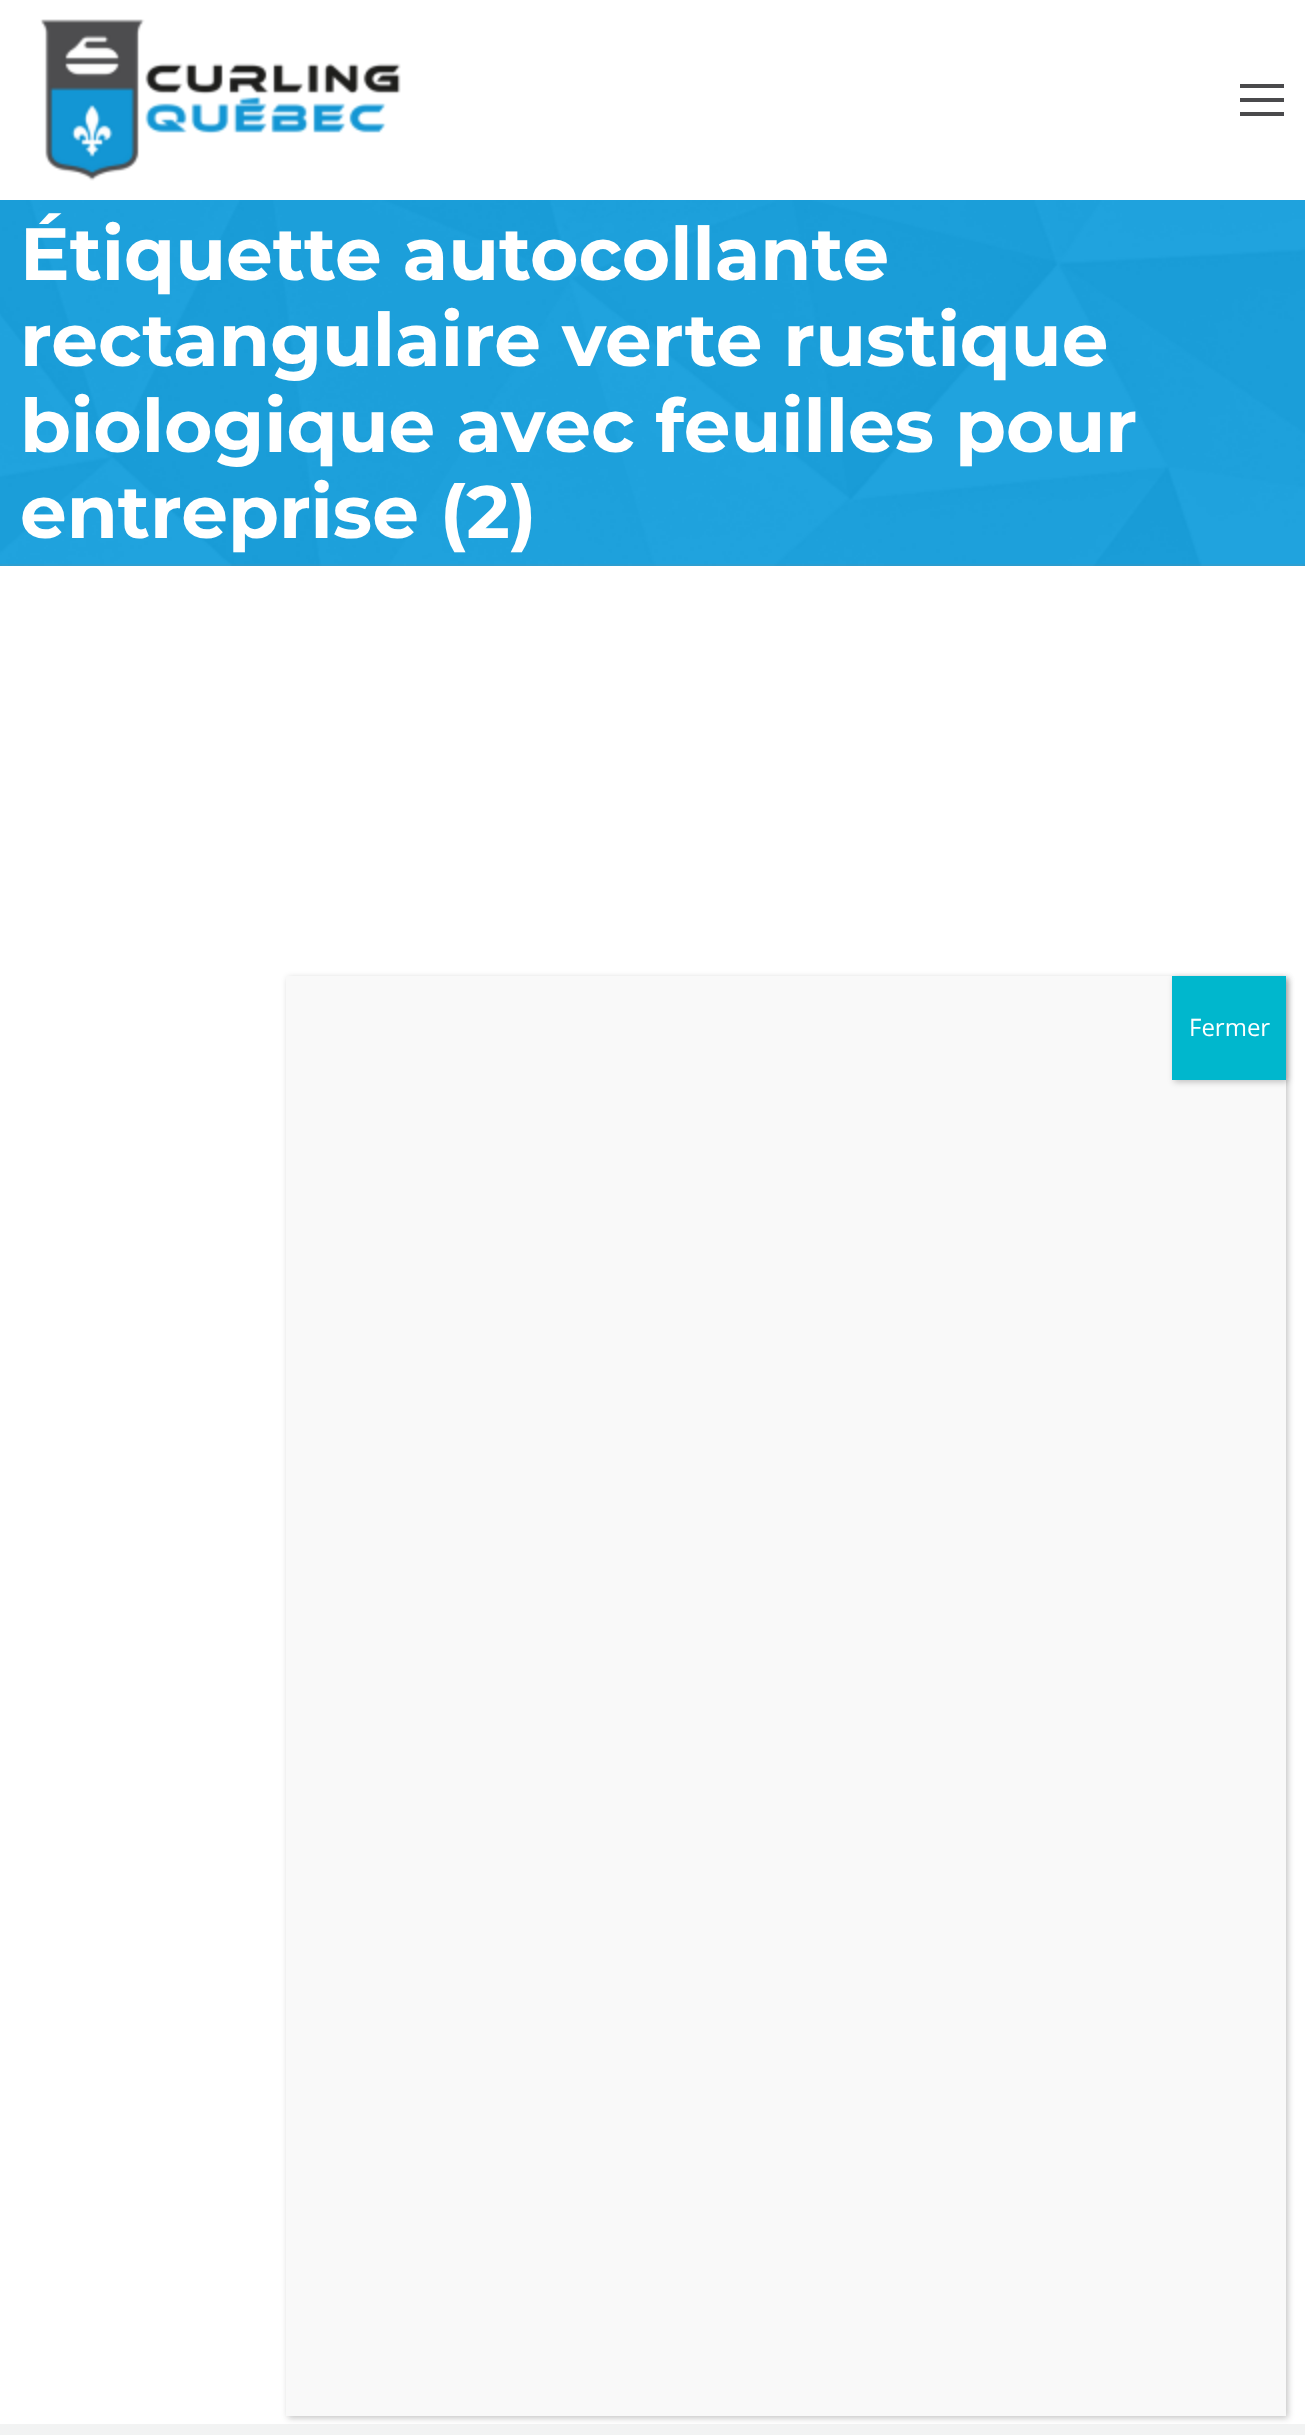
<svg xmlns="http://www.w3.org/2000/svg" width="1305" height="2435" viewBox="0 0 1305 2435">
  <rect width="100%" height="100%" fill="#f2f3f3"/>
  <path d="M0 0h1305v2424H0z" fill="#fff"/>
  <image x="40" y="19" width="361" height="162" href="img/1.png"/>
  <path d="M1240 84h44v4H1240z" fill="#4a4a4c"/>
  <path d="M1240 98h44v4H1240z" fill="#4a4a4c"/>
  <path d="M1240 112h44v4H1240z" fill="#4a4a4c"/>
  <path d="M0 200h1305v366H0z" fill="#0096da"/>
  <image x="0" y="200" width="1305" height="366" href="img/2.png"/>
  <path d="M0 564h1305v2H0z" fill="#88888824"/>
  <path d="M288 978h1000v1440H288z" fill="#0202023b" filter="blur(3px)"/>
  <path d="M286 976h1000v1440H286z" fill="#f9f9f9"/>
  <path d="M1174 978h114v104H1174z" fill="#0202023b" filter="blur(3px)"/>
  <path d="M1172 976h114v104H1172z" fill="#00b7cd"/>
  <g font-family="Montserrat" font-size="74" font-weight="bold" fill="#fff">
    <text x="20" y="280">Étiquette autocollante</text>
    <text x="20" y="366">rectangulaire verte rustique</text>
    <text x="20" y="452">biologique avec feuilles pour</text>
    <text x="20" y="538">entreprise (2)</text>
  </g>
  <text x="1189" y="1036" font-family="Open Sans" font-size="24" fill="#fff">Fermer</text>
</svg>
